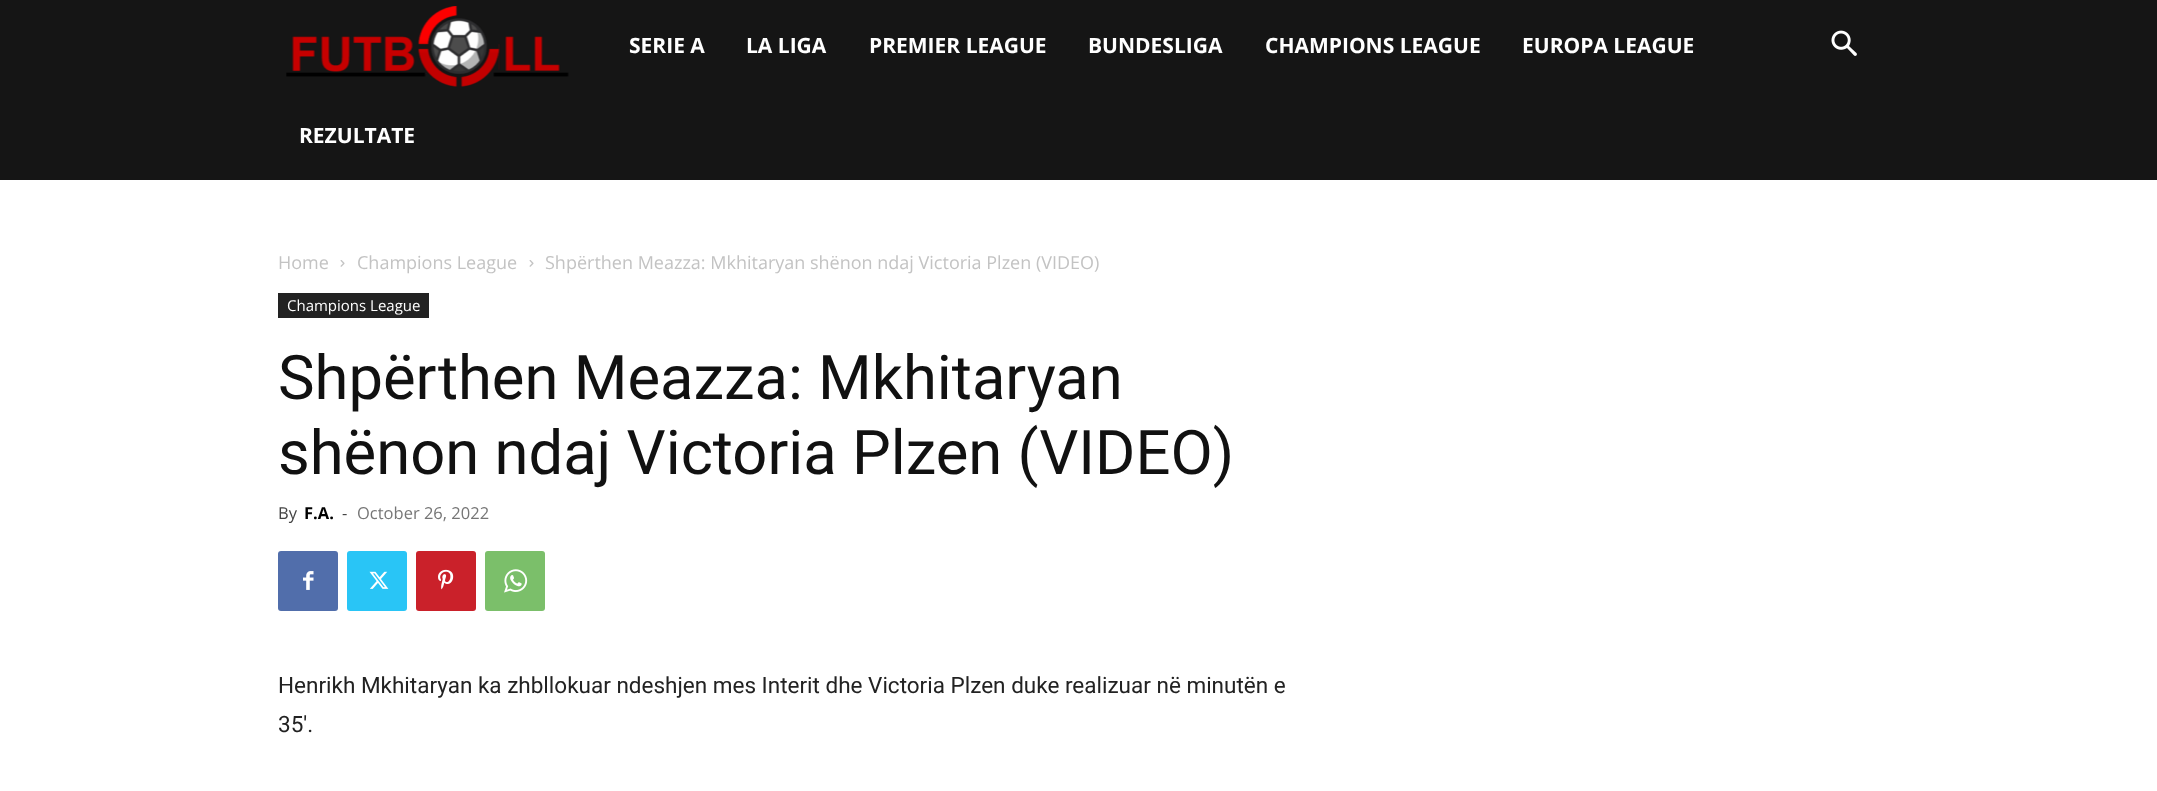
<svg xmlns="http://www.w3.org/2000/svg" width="2157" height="791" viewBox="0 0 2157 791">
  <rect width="100%" height="100%" fill="#fff"/>
  <path d="M0 0h2157v180H0z" fill="#151515"/>
  <image x="286" y="6" width="283" height="81" href="img/1.png"/>
  <image x="1831" y="30" width="26" height="26" href="img/2.png"/>
  <image x="340" y="260" width="5" height="7" href="img/3.png"/>
  <image x="529" y="260" width="5" height="7" href="img/3.png"/>
  <path d="M278 293h151v25H278z" fill="#222"/>
  <rect x="278" y="551" width="60" height="60" rx="3" fill="#516eab"/>
  <image x="303" y="571" width="11" height="19" href="img/4.png"/>
  <rect x="347" y="551" width="60" height="60" rx="3" fill="#29c5f6"/>
  <image x="369" y="571" width="20" height="18" href="img/5.png"/>
  <rect x="416" y="551" width="60" height="60" rx="3" fill="#ca212a"/>
  <image x="438" y="569" width="16" height="21" href="img/6.png"/>
  <rect x="485" y="551" width="60" height="60" rx="3" fill="#7bbf6a"/>
  <image x="504" y="569" width="24" height="24" href="img/7.png"/>
  <g font-family="Open Sans" font-size="21" font-weight="bold" fill="#fff">
    <text x="629" y="53">SERIE A</text>
    <text x="746" y="53">LA LIGA</text>
    <text x="869" y="53">PREMIER LEAGUE</text>
    <text x="1088" y="53">BUNDESLIGA</text>
    <text x="1265" y="53">CHAMPIONS LEAGUE</text>
    <text x="1522" y="53">EUROPA LEAGUE</text>
    <text x="299" y="143">REZULTATE</text>
  </g>
  <g font-family="Open Sans" font-size="18" fill="#c3c3c3">
    <text x="278" y="269">Home</text>
    <text x="357" y="269">Champions League</text>
    <text x="545" y="269">Shpërthen Meazza: Mkhitaryan shënon ndaj Victoria Plzen (VIDEO)</text>
  </g>
  <text x="287" y="311" font-family="Open Sans" font-size="15" fill="#fff">Champions League</text>
  <g font-family="Roboto" font-size="61.5" fill="#111">
    <text x="278" y="399">Shpërthen Meazza: Mkhitaryan</text>
    <text x="278" y="474">shënon ndaj Victoria Plzen (VIDEO)</text>
  </g>
  <text x="278" y="519" font-family="Open Sans" font-size="16.5" fill="#444">By</text>
  <text x="304" y="519" font-family="Open Sans" font-size="16.5" font-weight="bold" fill="#000">F.A.</text>
  <text x="342" y="519" font-family="Open Sans" font-size="16.5" fill="#444">-</text>
  <text x="357" y="519" font-family="Open Sans" font-size="16.5" fill="#767676">October 26, 2022</text>
  <g font-family="Roboto" font-size="22.5" fill="#222">
    <text x="278" y="693">Henrikh Mkhitaryan ka zhbllokuar ndeshjen mes Interit dhe Victoria Plzen duke realizuar në minutën e</text>
    <text x="278" y="732">35′.</text>
  </g>
</svg>
